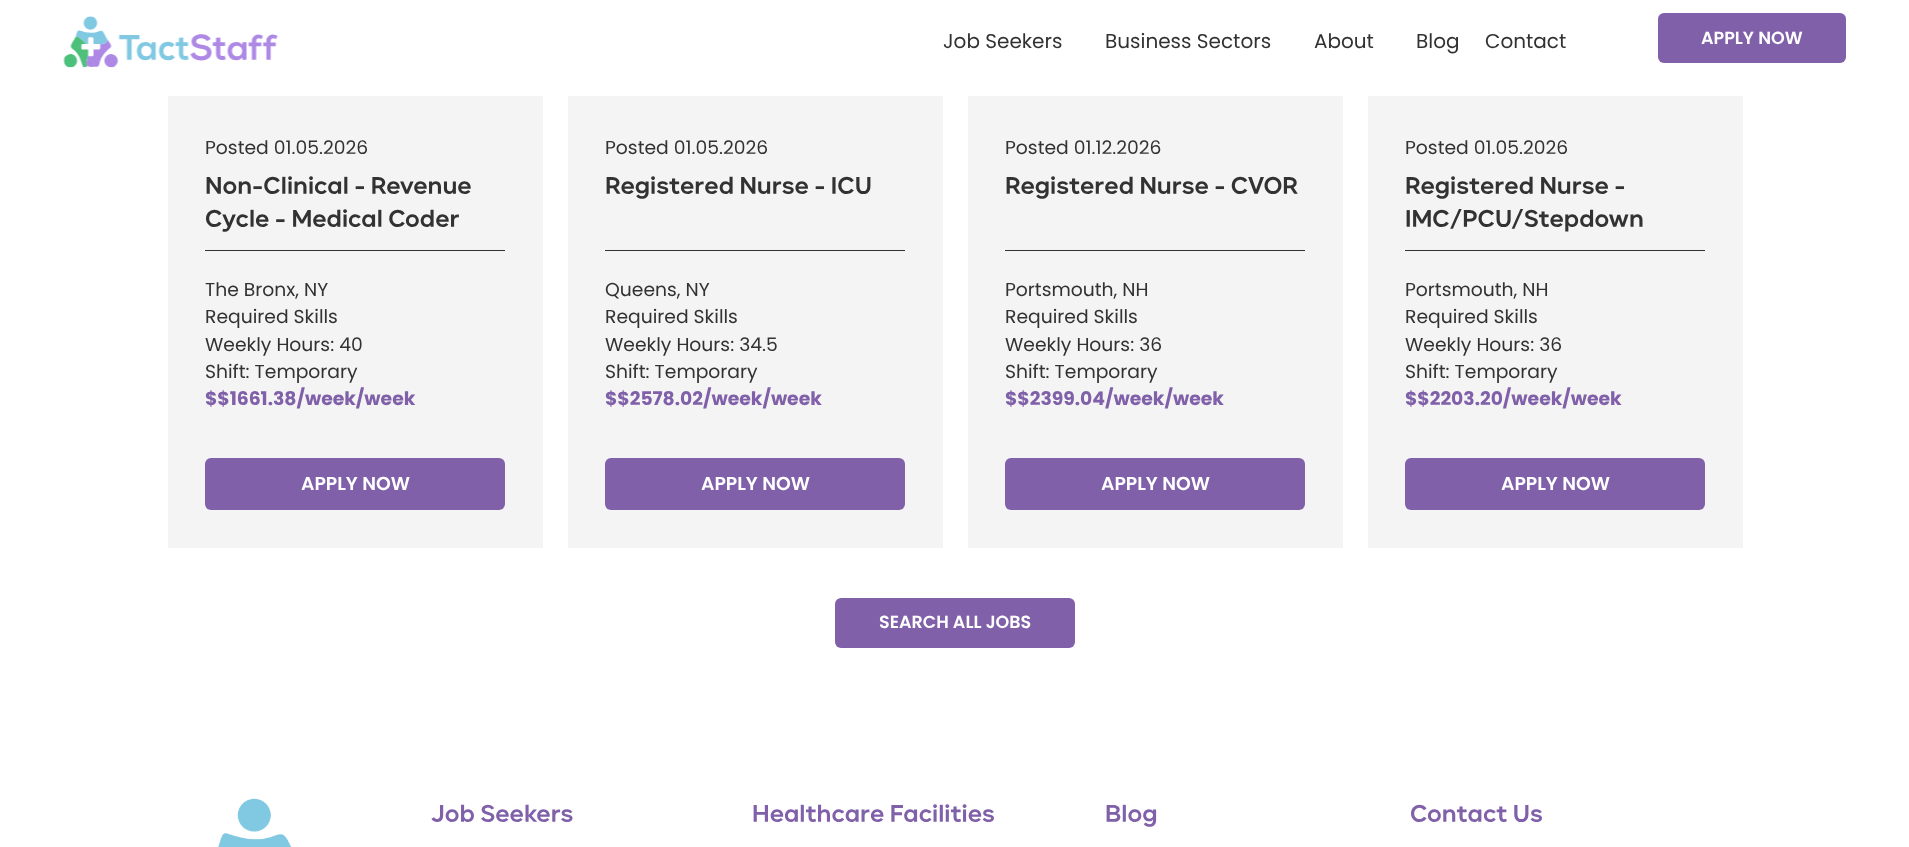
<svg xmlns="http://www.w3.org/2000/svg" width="1909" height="847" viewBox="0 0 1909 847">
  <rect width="100%" height="100%" fill="#fff"/>
  <image x="63" y="16" width="215" height="52" href="img/1.png"/>
  <rect x="1658" y="13" width="188" height="50" rx="6" fill="#7f60a9"/>
  <path d="M168 96h375v452H168z" fill="#f4f4f4"/>
  <path d="M205 250h300v1H205z" fill="#333232"/>
  <rect x="205" y="458" width="300" height="52" rx="6" fill="#7f60a9"/>
  <path d="M568 96h375v452H568z" fill="#f4f4f4"/>
  <path d="M605 250h300v1H605z" fill="#333232"/>
  <rect x="605" y="458" width="300" height="52" rx="6" fill="#7f60a9"/>
  <path d="M968 96h375v452H968z" fill="#f4f4f4"/>
  <path d="M1005 250h300v1H1005z" fill="#333232"/>
  <rect x="1005" y="458" width="300" height="52" rx="6" fill="#7f60a9"/>
  <path d="M1368 96h375v452H1368z" fill="#f4f4f4"/>
  <path d="M1405 250h300v1H1405z" fill="#333232"/>
  <rect x="1405" y="458" width="300" height="52" rx="6" fill="#7f60a9"/>
  <rect x="835" y="598" width="240" height="50" rx="6" fill="#7f60a9"/>
  <image x="218" y="798" width="74" height="49" href="img/2.png"/>
  <g font-family="Poppins" font-size="20" fill="#333232">
    <text x="943" y="48">Job Seekers</text>
    <text x="1105" y="48">Business Sectors</text>
    <text x="1314" y="48">About</text>
    <text x="1416" y="48">Blog</text>
    <text x="1485" y="48">Contact</text>
  </g>
  <text x="1701" y="44" font-family="Poppins" font-size="17.5" font-weight="600" fill="#fff">APPLY NOW</text>
  <text x="205" y="154" font-family="Poppins" font-size="18.75" fill="#333232">Posted 01.05.2026</text>
  <g font-family="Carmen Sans" font-size="22.5" font-weight="bold" fill="#333232">
    <text x="205" y="193">Non-Clinical - Revenue</text>
    <text x="205" y="226">Cycle - Medical Coder</text>
  </g>
  <g font-family="Poppins" font-size="18.75" fill="#333232">
    <text x="205" y="296">The Bronx, NY</text>
    <text x="205" y="323">Required Skills</text>
    <text x="205" y="351">Weekly Hours: 40</text>
    <text x="205" y="378">Shift: Temporary</text>
  </g>
  <text x="205" y="405" font-family="Poppins" font-size="18.75" font-weight="bold" fill="#7f60a9">$$1661.38/week/week</text>
  <text x="301" y="490" font-family="Poppins" font-size="18.75" font-weight="600" fill="#fff">APPLY NOW</text>
  <text x="605" y="154" font-family="Poppins" font-size="18.75" fill="#333232">Posted 01.05.2026</text>
  <text x="605" y="193" font-family="Carmen Sans" font-size="22.5" font-weight="bold" fill="#333232">Registered Nurse - ICU</text>
  <g font-family="Poppins" font-size="18.75" fill="#333232">
    <text x="605" y="296">Queens, NY</text>
    <text x="605" y="323">Required Skills</text>
    <text x="605" y="351">Weekly Hours: 34.5</text>
    <text x="605" y="378">Shift: Temporary</text>
  </g>
  <text x="605" y="405" font-family="Poppins" font-size="18.75" font-weight="bold" fill="#7f60a9">$$2578.02/week/week</text>
  <text x="701" y="490" font-family="Poppins" font-size="18.75" font-weight="600" fill="#fff">APPLY NOW</text>
  <text x="1005" y="154" font-family="Poppins" font-size="18.75" fill="#333232">Posted 01.12.2026</text>
  <text x="1005" y="193" font-family="Carmen Sans" font-size="22.5" font-weight="bold" fill="#333232">Registered Nurse - CVOR</text>
  <g font-family="Poppins" font-size="18.75" fill="#333232">
    <text x="1005" y="296">Portsmouth, NH</text>
    <text x="1005" y="323">Required Skills</text>
    <text x="1005" y="351">Weekly Hours: 36</text>
    <text x="1005" y="378">Shift: Temporary</text>
  </g>
  <text x="1005" y="405" font-family="Poppins" font-size="18.75" font-weight="bold" fill="#7f60a9">$$2399.04/week/week</text>
  <text x="1101" y="490" font-family="Poppins" font-size="18.75" font-weight="600" fill="#fff">APPLY NOW</text>
  <text x="1405" y="154" font-family="Poppins" font-size="18.75" fill="#333232">Posted 01.05.2026</text>
  <g font-family="Carmen Sans" font-size="22.5" font-weight="bold" fill="#333232">
    <text x="1405" y="193">Registered Nurse -</text>
    <text x="1405" y="226">IMC/PCU/Stepdown</text>
  </g>
  <g font-family="Poppins" font-size="18.75" fill="#333232">
    <text x="1405" y="296">Portsmouth, NH</text>
    <text x="1405" y="323">Required Skills</text>
    <text x="1405" y="351">Weekly Hours: 36</text>
    <text x="1405" y="378">Shift: Temporary</text>
  </g>
  <text x="1405" y="405" font-family="Poppins" font-size="18.75" font-weight="bold" fill="#7f60a9">$$2203.20/week/week</text>
  <text x="1501" y="490" font-family="Poppins" font-size="18.75" font-weight="600" fill="#fff">APPLY NOW</text>
  <text x="879" y="628" font-family="Poppins" font-size="17.5" font-weight="600" fill="#fff">SEARCH ALL JOBS</text>
  <g font-family="Carmen Sans" font-size="22.5" font-weight="bold" fill="#7f60a9">
    <text x="431" y="821">Job Seekers</text>
    <text x="752" y="821">Healthcare Facilities</text>
    <text x="1105" y="821">Blog</text>
    <text x="1410" y="821">Contact Us</text>
  </g>
</svg>
